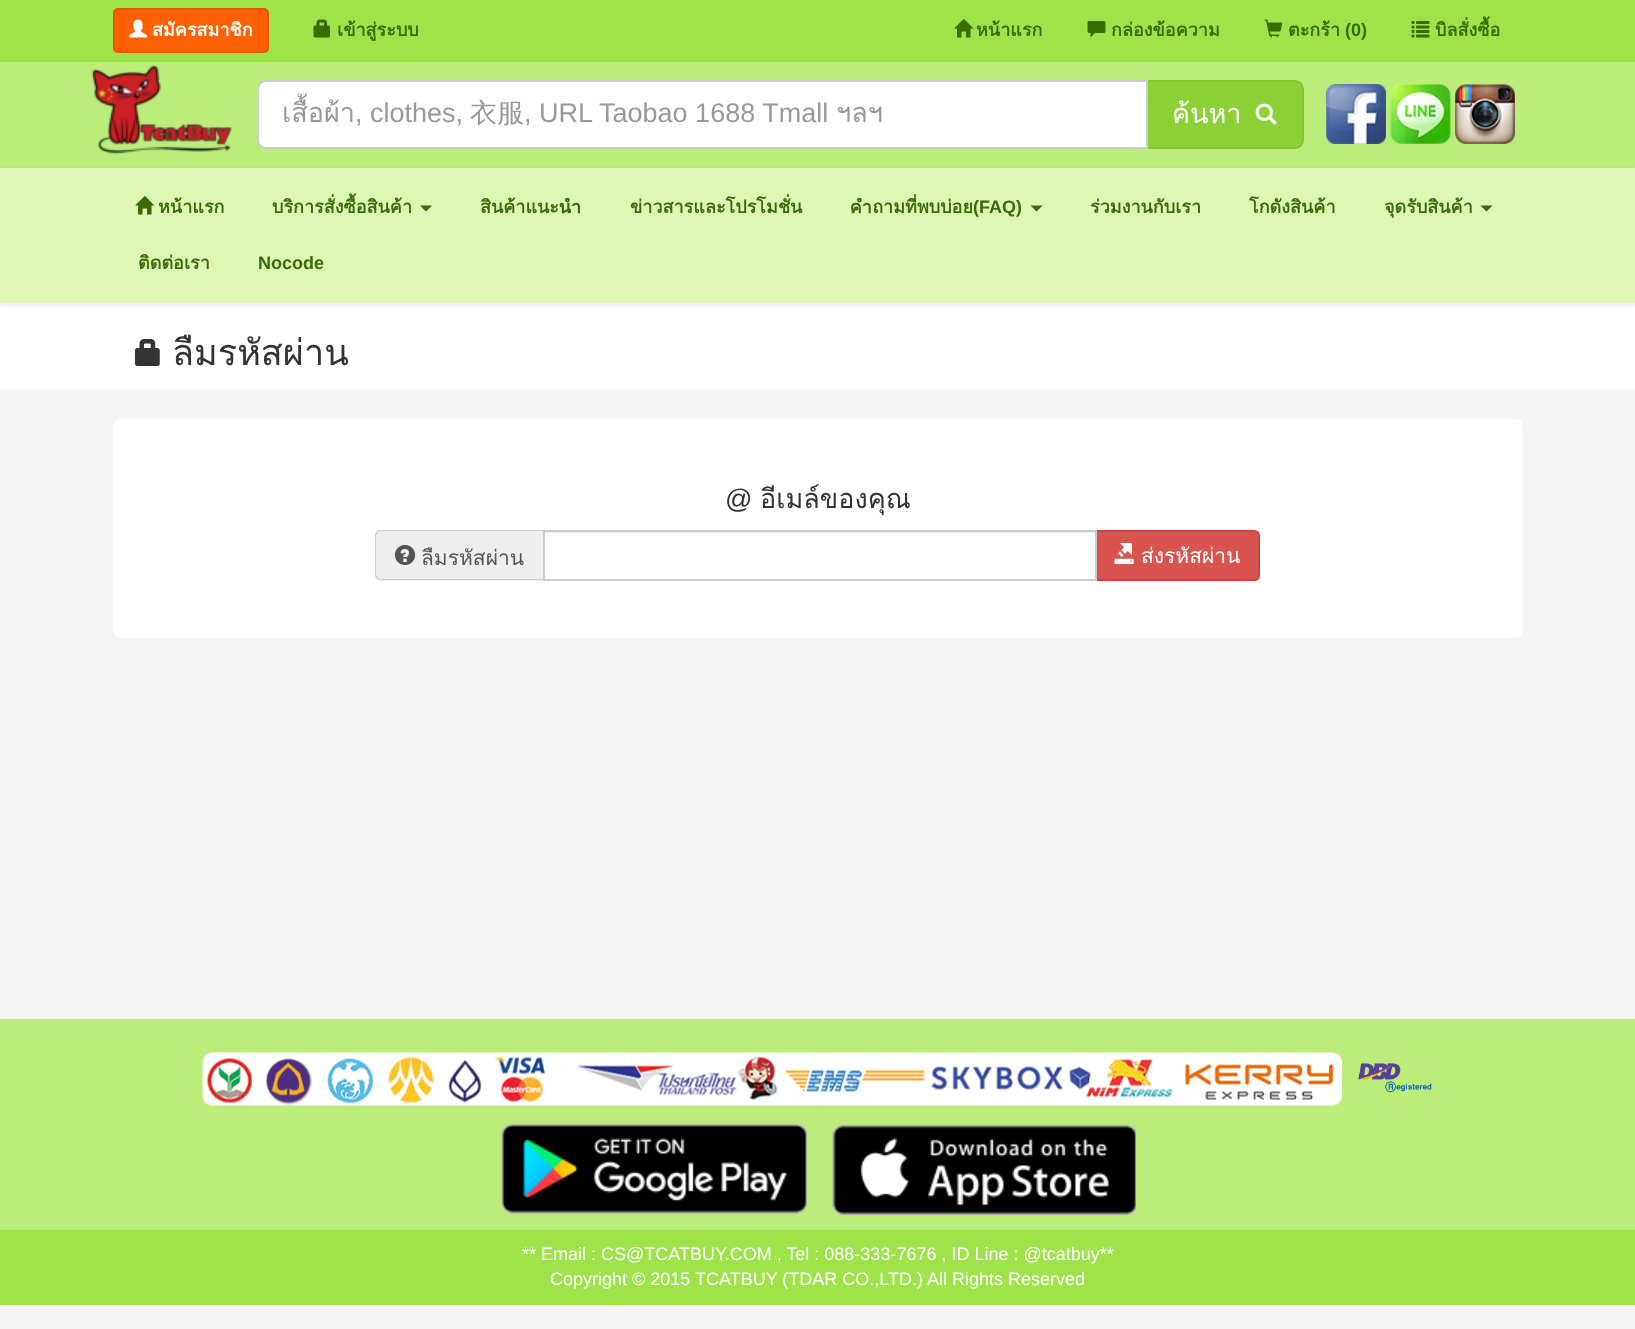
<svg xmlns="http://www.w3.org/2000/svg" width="1635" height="1329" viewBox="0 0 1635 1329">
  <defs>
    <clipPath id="clip1"><path d="M282 92h840v43H282z"/></clipPath>
  </defs>
  <rect width="100%" height="100%" fill="#f5f5f5"/>
  <path d="M0 0h1635v60H0z" fill="#9ee34a"/>
  <path d="M0 60h1635v2H0z" fill="#95dd3d"/>
  <rect x="114" y="9" width="154" height="43" rx="4" fill="#fd6101" stroke="#e45903" stroke-width="2"/>
  <image x="129" y="19" width="18" height="19" href="img/1.png"/>
  <image x="313" y="19" width="17" height="19" href="img/2.png"/>
  <image x="954" y="19" width="20" height="19" href="img/3.png"/>
  <image x="1087" y="21" width="19" height="17" href="img/4.png"/>
  <image x="1264" y="19" width="19" height="19" href="img/5.png"/>
  <path d="M0 62h1635v106H0z" fill="#bced7b"/>
  <image x="91" y="65" width="142" height="89" href="img/7.png"/>
  <path d="M1147 81H1295C1299.5 81 1303 84.5 1303 89V140C1303 144.5 1299.5 148 1295 148H1147Z" fill="#8cd237" stroke="#83c731" stroke-width="2"/>
  <path d="M266 81H1147V148H266C261.5 148 258 144.5 258 140V89C258 84.5 261.5 81 266 81Z" fill="#fff" stroke="#ccc" stroke-width="2"/>
  <image x="1255" y="103" width="22" height="22" href="img/8.png"/>
  <image x="1326" y="84" width="60" height="60" href="img/9.png"/>
  <image x="1390" y="84" width="61" height="60" href="img/10.png"/>
  <image x="1455" y="84" width="60" height="60" href="img/11.png"/>
  <path d="M0 303h1635v86H0z" fill="#fff"/>
  <path d="M-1 168h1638v138H-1z" fill="#0000000f" filter="blur(1.5px)"/>
  <path d="M0 168h1635v135H0z" fill="#ddf8b5"/>
  <image x="135" y="196" width="20" height="19" href="img/12.png"/>
  <path d="M420 205.5H432L426 211.5Z" fill="#3b6b03"/>
  <path d="M1030.5 205.5H1042.5L1036.5 211.5Z" fill="#3b6b03"/>
  <path d="M1480.5 205.5H1492.5L1486.5 211.5Z" fill="#3b6b03"/>
  <rect x="113" y="419" width="1410" height="219" rx="8" fill="#fff"/>
  <path d="M381 530H543V581H381C377.5 581 375 578.5 375 575V536C375 532.5 377.5 530 381 530Z" fill="#eee"/>
  <path d="M381 530H543V580H381C378 580 375 578 375 574V536C375 532 378 530 381 530ZM381 531H543V579H381C379 579 376 577 376 574V536C376 533 379 531 381 531Z" fill="#ccc" fill-rule="evenodd"/>
  <path d="M545 532h550v1H545z" fill="#ececec"/>
  <path d="M1096 531H1254C1257 531 1259 533 1259 536V575C1259 578 1257 580 1254 580H1096Z" fill="#d9534f" stroke="#d43f3a" stroke-width="2"/>
  <path d="M544 531h552v49H544z" fill="none" stroke="#ccc" stroke-width="2"/>
  <image x="1114" y="543" width="20" height="21" href="img/15.png"/>
  <path d="M0 1019h1635v211H0z" fill="#bced7b"/>
  <image x="202" y="1052" width="1140" height="54" href="img/16.png"/>
  <image x="1358" y="1063" width="74" height="30" href="img/17.png"/>
  <image x="500" y="1123" width="307" height="91" href="img/18.png"/>
  <image x="832" y="1124" width="304" height="91" href="img/19.png"/>
  <path d="M0 1230h1635v75H0z" fill="#9ee34a"/>
  <text x="152" y="36" font-family="Loma" font-size="18" font-weight="bold" fill="#fff">สมัครสมาชิก</text>
  <g font-family="Loma" font-size="18" font-weight="bold" fill="#3b6b03">
    <text x="337" y="36">เข้าสู่ระบบ</text>
    <text x="976" y="36">หน้าแรก</text>
    <text x="1111" y="36">กล่องข้อความ</text>
    <text x="1288" y="36">ตะกร้า</text>
  </g>
  <text x="1345" y="36" font-family="Liberation Sans" font-size="18" font-weight="bold" fill="#3b6b03">(0)</text>
  <text x="1435" y="36" font-family="Loma" font-size="18" font-weight="bold" fill="#3b6b03">บิลสั่งซื้อ</text>
  <image x="1411" y="21" width="19" height="17" href="img/6.png"/>
  <g clip-path="url(#clip1)">
    <text x="282" y="122" font-family="Loma" font-size="27" fill="#999">เสื้อผ้า</text>
  </g>
  <text x="355" y="122" font-family="Liberation Sans" font-size="27" fill="#999">, clothes,</text>
  <text x="470" y="122" font-family="WenQuanYi Zen Hei" font-size="27" font-weight="500" fill="#999">衣服</text>
  <text x="524" y="122" font-family="Liberation Sans" font-size="27" fill="#999">, URL Taobao 1688 Tmall</text>
  <text x="836" y="122" font-family="Loma" font-size="27" fill="#999">ฯลฯ</text>
  <text x="1172" y="123" font-family="Loma" font-size="27" fill="#fff">ค้นหา</text>
  <g font-family="Loma" font-size="18" font-weight="bold" fill="#3b6b03">
    <text x="158" y="213">หน้าแรก</text>
    <text x="272" y="213">บริการสั่งซื้อสินค้า</text>
    <text x="480" y="213">สินค้าแนะนำ</text>
    <text x="630" y="213">ข่าวสารและโปรโมชั่น</text>
    <text x="850" y="213">คำถามที่พบบ่อย</text>
  </g>
  <text x="973" y="213" font-family="Liberation Sans" font-size="18" font-weight="bold" fill="#3b6b03">(FAQ)</text>
  <g font-family="Loma" font-size="18" font-weight="bold" fill="#3b6b03">
    <text x="1090" y="213">ร่วมงานกับเรา</text>
    <text x="1249" y="213">โกดังสินค้า</text>
    <text x="1384" y="213">จุดรับสินค้า</text>
    <text x="138" y="269">ติดต่อเรา</text>
  </g>
  <text x="258" y="269" font-family="Liberation Sans" font-size="18" font-weight="bold" fill="#3b6b03">Nocode</text>
  <text x="172" y="365" font-family="Loma" font-size="36" fill="#333">ลืมรหัสผ่าน</text>
  <image x="135" y="339" width="25" height="27" href="img/13.png"/>
  <text x="725" y="508" font-family="Liberation Sans" font-size="27" fill="#333">@</text>
  <text x="760" y="508" font-family="Loma" font-size="27" fill="#333">อีเมล์ของคุณ</text>
  <text x="421" y="565" font-family="Loma" font-size="21" fill="#555">ลืมรหัสผ่าน</text>
  <image x="394" y="544" width="22" height="22" href="img/14.png"/>
  <text x="1141" y="563" font-family="Loma" font-size="21" fill="#fff">ส่งรหัสผ่าน</text>
  <g font-family="Liberation Sans" font-size="18" fill="#fff">
    <text x="522" y="1260">** Email : CS@TCATBUY.COM , Tel : 088-333-7676 , ID Line : @tcatbuy**</text>
    <text x="550" y="1285">Copyright © 2015 TCATBUY (TDAR CO.,LTD.) All Rights Reserved</text>
  </g>
</svg>
